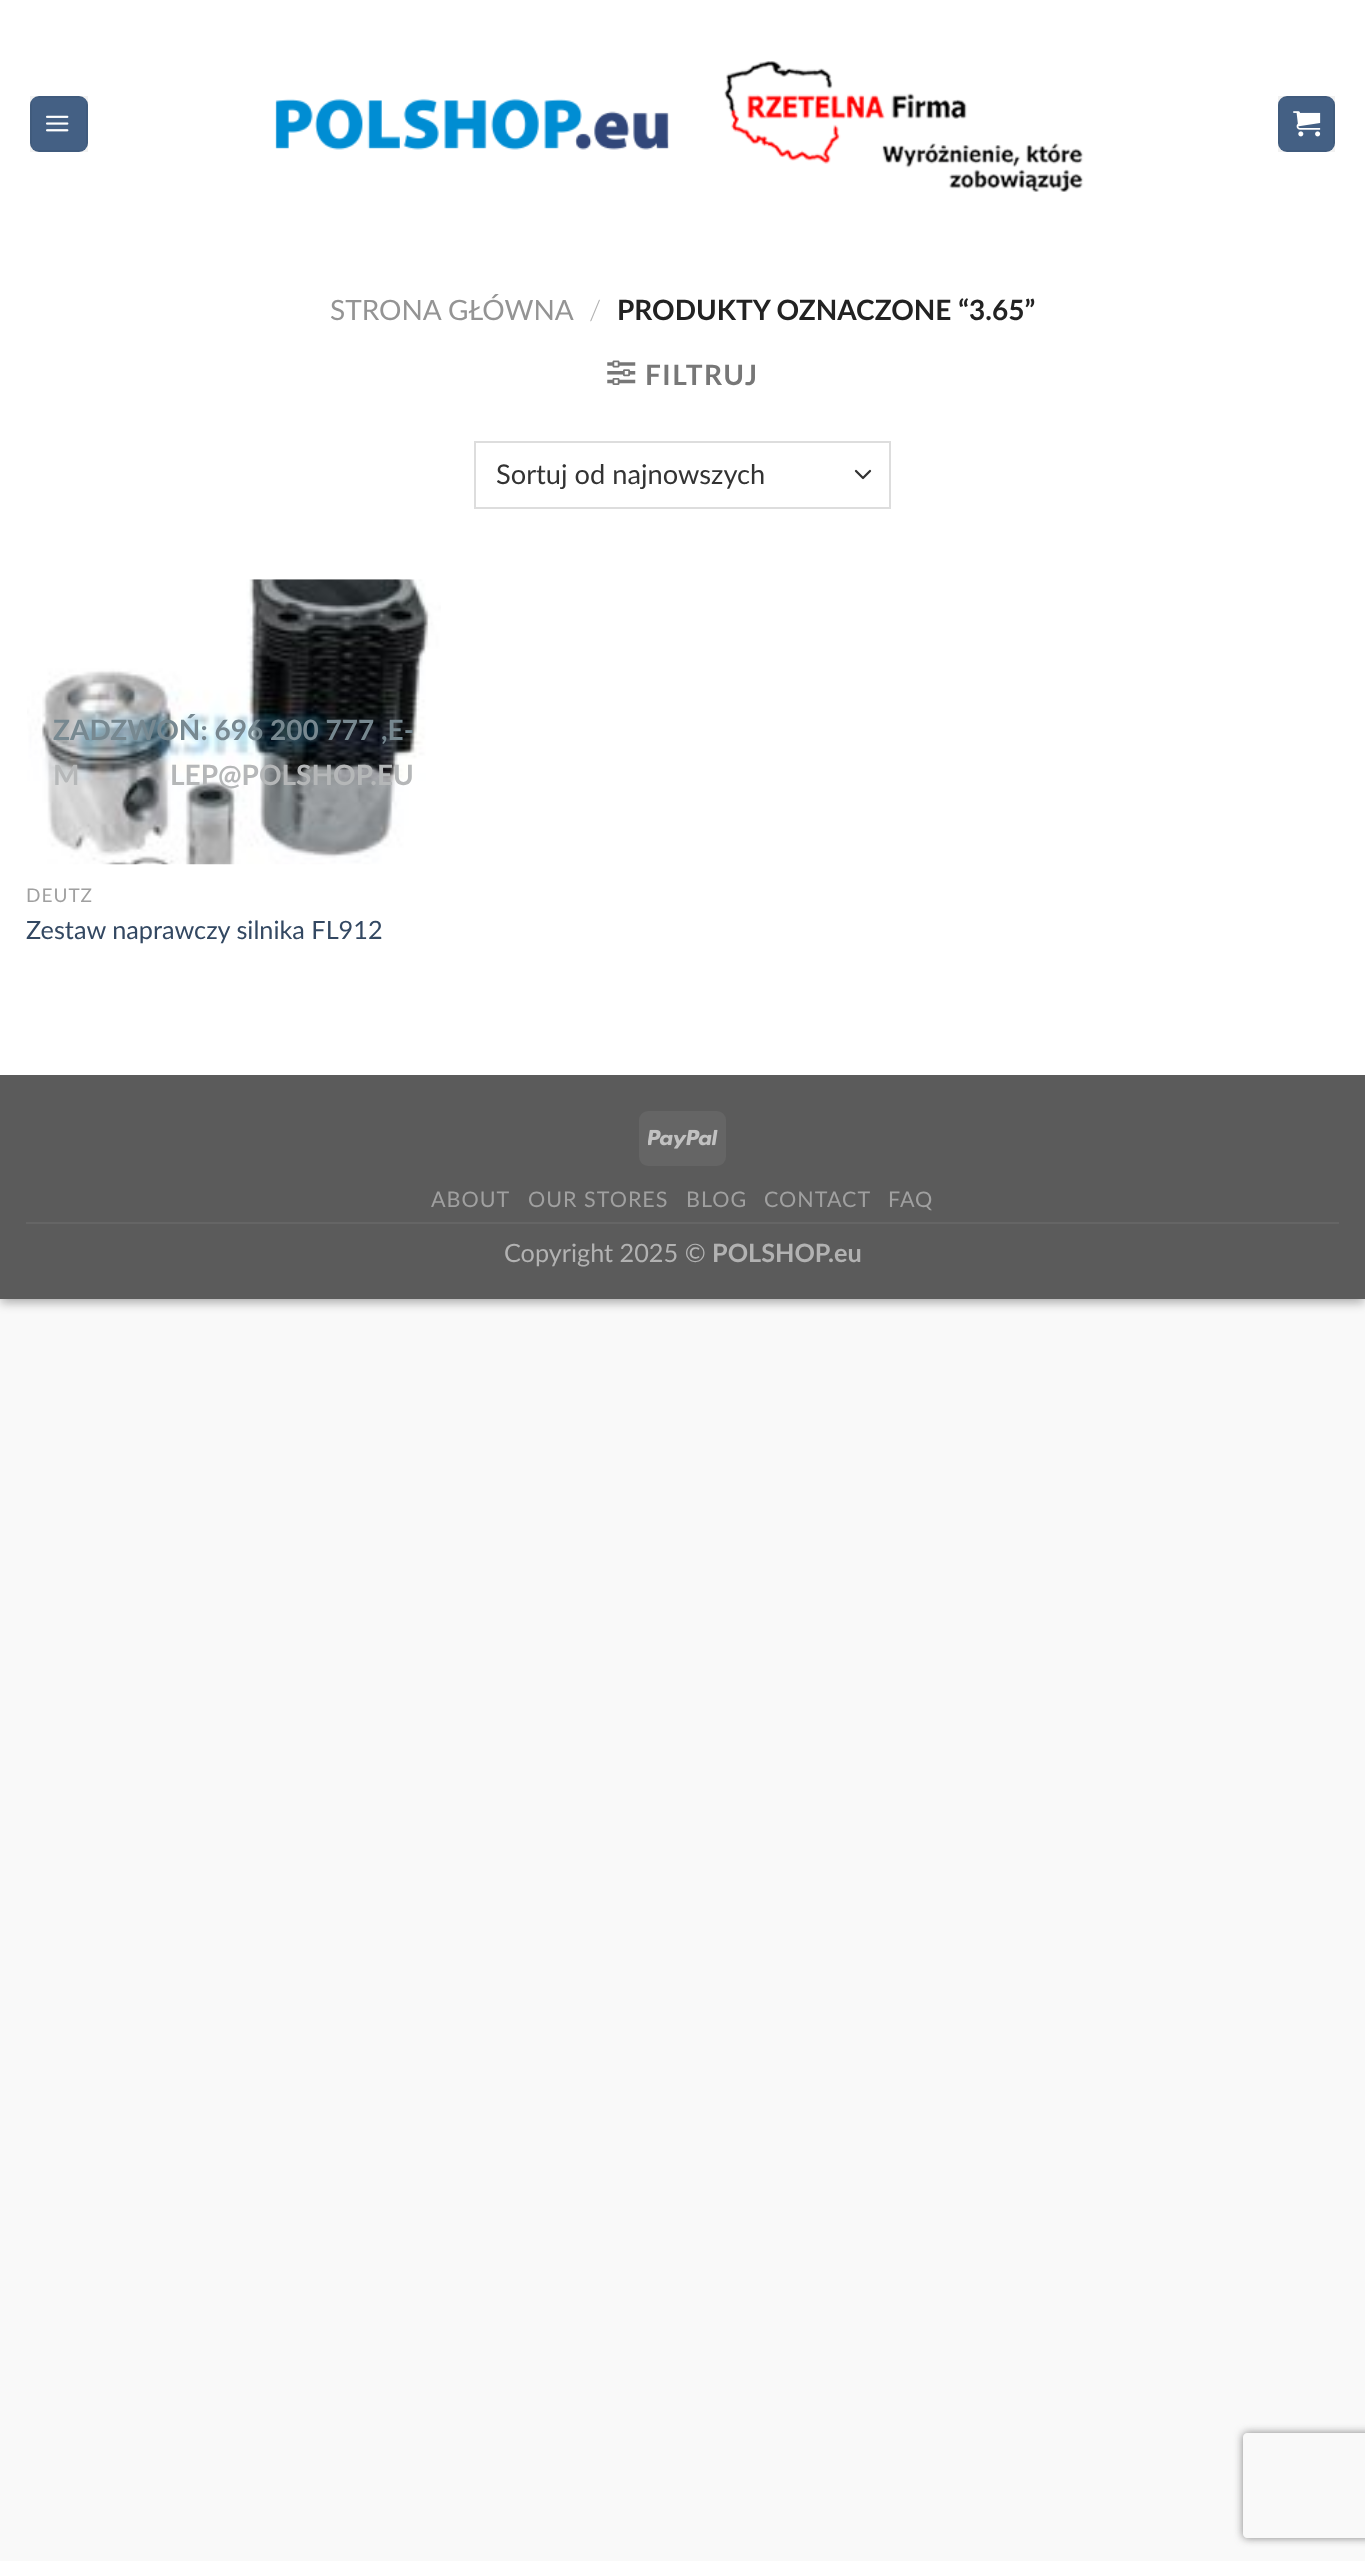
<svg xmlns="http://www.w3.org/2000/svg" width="1365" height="2561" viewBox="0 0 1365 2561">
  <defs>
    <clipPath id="clip1"><path d="M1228 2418H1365V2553H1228ZM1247 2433H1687C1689 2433 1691 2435 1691 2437V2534C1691 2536 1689 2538 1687 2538H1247C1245 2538 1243 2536 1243 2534V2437C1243 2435 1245 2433 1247 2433Z" clip-rule="evenodd"/></clipPath>
  </defs>
  <rect width="100%" height="100%" fill="#f9f9f9"/>
  <path d="M0 5h1365v1299H0z" fill="#0000003b" filter="blur(5px)"/>
  <path d="M7 12h1351v1285H7z" fill="#00000029" filter="blur(5px)"/>
  <path d="M0 0h1365v1075H0z" fill="#fff"/>
  <rect x="30" y="96" width="58" height="56" rx="9" fill="#446084"/>
  <path d="M31 97h56v54H31z" fill="none" stroke="#0000000d" stroke-width="2"/>
  <image x="46" y="115" width="23" height="17" href="img/1.png"/>
  <image x="275" y="61" width="809" height="131" href="img/2.png"/>
  <rect x="1278" y="96" width="57" height="56" rx="9" fill="#446084"/>
  <path d="M1279 97h55v54H1279z" fill="none" stroke="#0000000d" stroke-width="2"/>
  <image x="1293" y="111" width="28" height="26" href="img/3.png"/>
  <image x="607" y="360" width="29" height="25" href="img/4.png"/>
  <path d="M856 471L863 478L870 471" fill="none" stroke="#333" stroke-width="2.3" stroke-linecap="round" stroke-linejoin="round"/>
  <path d="M475 442h415v66H475z" fill="none" stroke="#ddd" stroke-width="2"/>
  <image x="27" y="579" width="414" height="286" href="img/5.png"/>
  <path d="M0 1075h1365v224H0z" fill="#5b5b5b"/>
  <rect x="639" y="1111" width="87" height="55" rx="9" fill="#656565"/>
  <image x="648" y="1129" width="70" height="20" href="img/6.png"/>
  <path d="M26 1222h1313v2H26z" fill="#656565"/>
  <g clip-path="url(#clip1)">
    <rect x="1243" y="2433" width="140" height="105" rx="4" fill="#808080" filter="blur(4.5px)"/>
  </g>
  <text x="330" y="320" font-family="Lato" font-size="28" fill="#949494">STRONA GŁÓWNA</text>
  <text x="589" y="320" font-family="Lato" font-size="28" font-weight="300" fill="#b2b2b2">/</text>
  <text x="617" y="320" font-family="Lato" font-size="28" font-weight="bold" fill="#222">PRODUKTY OZNACZONE “3.65”</text>
  <text x="645" y="385" font-family="Lato" font-size="28" font-weight="bold" letter-spacing="1.5" fill="#777">FILTRUJ</text>
  <text x="496" y="484" font-family="Lato" font-size="27.25" fill="#333">Sortuj od najnowszych</text>
  <text x="53" y="740" font-family="Lato" font-size="28" font-weight="bold" fill="#778890">ZADZWOŃ: 696 200 777 ,E-</text>
  <g font-family="Lato" font-size="28" font-weight="bold" fill="#b5b7b8">
    <text x="53" y="785">M</text>
    <text x="170" y="785">LEP@POLSHOP.EU</text>
  </g>
  <text x="26" y="902" font-family="Lato" font-size="19" letter-spacing="1" fill="#a0a0a0">DEUTZ</text>
  <text x="26" y="939" font-family="Lato" font-size="25.25" fill="#334862">Zestaw naprawczy silnika FL912</text>
  <g font-family="Lato" font-size="21.5" letter-spacing="1" fill="#a0a0a0">
    <text x="431" y="1207">ABOUT</text>
    <text x="528" y="1207">OUR STORES</text>
    <text x="686" y="1207">BLOG</text>
    <text x="764" y="1207">CONTACT</text>
    <text x="888" y="1207">FAQ</text>
  </g>
  <text x="504" y="1262" font-family="Lato" font-size="25.25" fill="#b2b2b2">Copyright 2025 ©</text>
  <text x="712" y="1262" font-family="Lato" font-size="25.25" font-weight="bold" fill="#b2b2b2">POLSHOP.eu</text>
</svg>
